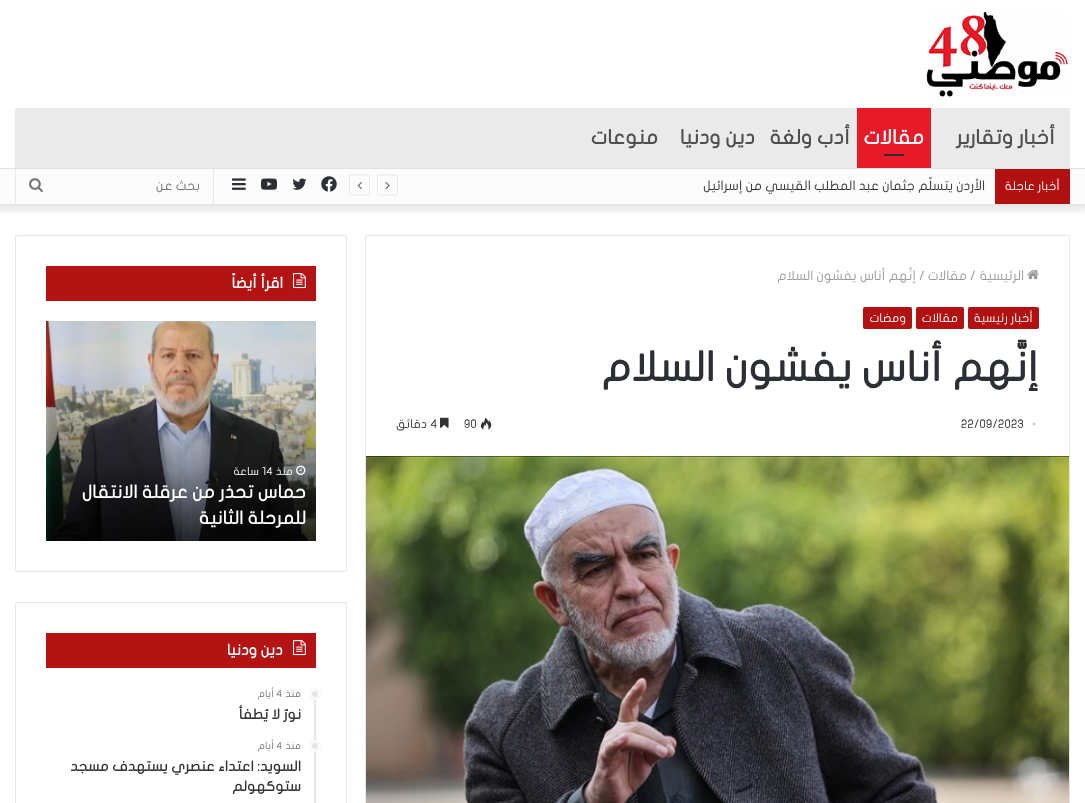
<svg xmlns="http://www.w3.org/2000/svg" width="1085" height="803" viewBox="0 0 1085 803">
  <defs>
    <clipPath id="clip1"><path d="M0 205h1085v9H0z"/></clipPath>
  </defs>
  <rect width="100%" height="100%" fill="#fff"/>
  <g clip-path="url(#clip1)">
    <path d="M-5 -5h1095v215H-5z" fill="#0000001a" filter="blur(5px)"/>
  </g>
  <image x="926" y="11" width="142" height="86" href="img/1.png"/>
  <path d="M15 108h1055v60H15z" fill="#eaeaea"/>
  <path d="M857 108h74v60H857z" fill="#e71a29"/>
  <path d="M884 154h20v2H884z" fill="#2c2f34"/>
  <path d="M0 169h1085v35H0z" fill="#fcfcfc"/>
  <path d="M0 168h1085v1H0z" fill="#e3e3e3"/>
  <path d="M0 204h1085v1H0z" fill="#e3e3e3"/>
  <path d="M995 169h75v35H995z" fill="#b21111"/>
  <path d="M396 195H379C378 195 377.5 194.5 377.5 193.5V176.5C377.5 176 378 175 379 175H396C397 175 397.5 176 397.5 176.5V193.5C397.5 194.5 397 195 396 195Z" fill="none" stroke="#e8e8e8"/>
  <image x="385" y="182" width="5" height="8" href="img/2.png"/>
  <path d="M368 195H351C350 195 349.5 194.5 349.5 193.5V176.5C349.5 176 350 175 351 175H368C369 175 369.5 176 369.5 176.5V193.5C369.5 194.5 369 195 368 195Z" fill="none" stroke="#e8e8e8"/>
  <image x="357" y="182" width="5" height="8" href="img/3.png"/>
  <image x="321" y="176" width="16" height="16" href="img/4.png"/>
  <image x="292" y="178" width="15" height="12" href="img/5.png"/>
  <image x="261" y="178" width="16" height="12" href="img/6.png"/>
  <image x="232" y="178" width="14" height="12" href="img/7.png"/>
  <path d="M213 169h1v35H213z" fill="#e8e8e8"/>
  <path d="M15 169h1v35H15z" fill="#e8e8e8"/>
  <image x="29" y="178" width="14" height="14" href="img/8.png"/>
  <rect x="365.5" y="235.5" width="704" height="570" rx="1.5" fill="none" stroke="#e6e6e6"/>
  <image x="1027" y="269" width="12" height="11" href="img/9.png"/>
  <rect x="968" y="307" width="71" height="22" rx="2" fill="#b21111"/>
  <rect x="916" y="307" width="48" height="22" rx="2" fill="#b21111"/>
  <rect x="863" y="307" width="49" height="22" rx="2" fill="#b21111"/>
  <image x="480" y="417" width="12" height="13" href="img/10.png"/>
  <image x="440" y="417" width="9" height="11" href="img/11.png"/>
  <image x="366" y="456" width="703" height="347" href="img/12.png"/>
  <rect x="15.5" y="235.5" width="331" height="336" rx="1.5" fill="none" stroke="#e6e6e6"/>
  <path d="M46 266h270v35H46z" fill="#b31313"/>
  <image x="293" y="273" width="13" height="16" href="img/13.png"/>
  <image x="46" y="321" width="270" height="220" href="img/14.png"/>
  <image x="296" y="465" width="10" height="10" href="img/15.png"/>
  <rect x="15.5" y="602.5" width="331" height="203" rx="1.5" fill="none" stroke="#e6e6e6"/>
  <path d="M46 633h270v35H46z" fill="#b31313"/>
  <image x="293" y="640" width="13" height="16" href="img/13.png"/>
  <path d="M314 688h2v115H314z" fill="#e6e6e6"/>
  <circle cx="315" cy="694" r="6" fill="#e6e6e6"/>
  <circle cx="315" cy="694" r="4.5" fill="none" stroke="#ffffffcc" stroke-width="3"/>
  <circle cx="315" cy="746" r="6" fill="#e6e6e6"/>
  <circle cx="315" cy="746" r="4.5" fill="none" stroke="#ffffffcc" stroke-width="3"/>
  <text x="1055" y="144" font-family="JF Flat" font-size="20" font-weight="bold" direction="rtl" fill="#4f4f4f">أخبار وتقارير</text>
  <text x="924" y="144" font-family="JF Flat" font-size="20" font-weight="bold" direction="rtl" fill="#fff">مقالات</text>
  <g font-family="JF Flat" font-size="20" font-weight="bold" direction="rtl" fill="#4f4f4f">
    <text x="850" y="144">أدب ولغة</text>
    <text x="755" y="144">دين ودنيا</text>
    <text x="658" y="144">منوعات</text>
  </g>
  <text x="1060" y="190" font-family="JF Flat" font-size="12" direction="rtl" fill="#fff">أخبار عاجلة</text>
  <text x="985" y="190" font-family="JF Flat" font-size="13" direction="rtl" fill="#2c2f34">الأردن يتسلّم جثمان عبد المطلب القيسي من إسرائيل</text>
  <text x="200" y="190" font-family="JF Flat" font-size="13" direction="rtl" fill="#767676">بحث عن</text>
  <text x="1024" y="280" font-family="JF Flat" font-size="13" direction="rtl" fill="#999">الرئيسية</text>
  <text x="970" y="280" font-family="JF Flat" font-size="13" fill="#999">/</text>
  <text x="967" y="280" font-family="JF Flat" font-size="13" direction="rtl" fill="#999">مقالات</text>
  <text x="919" y="280" font-family="JF Flat" font-size="13" fill="#999">/</text>
  <text x="916" y="280" font-family="JF Flat" font-size="13" direction="rtl" fill="#999">إنَّهم أناس يفشون السلام</text>
  <g font-family="JF Flat" font-size="12" direction="rtl" fill="#fff">
    <text x="1033" y="322">أخبار رئيسية</text>
    <text x="958" y="322">مقالات</text>
    <text x="906" y="322">ومضات</text>
  </g>
  <text x="1039" y="381" font-family="JF Flat" font-size="41" font-weight="bold" direction="rtl" fill="#2c2f34">إنَّهم أناس يفشون السلام</text>
  <text x="1032" y="428" font-family="Liberation Serif" font-size="12" fill="#ccc">•</text>
  <g font-family="JF Flat" font-size="12" fill="#333">
    <text x="961" y="428">22/09/2023</text>
    <text x="464" y="428">90</text>
    <text x="430" y="428">4</text>
  </g>
  <text x="427" y="428" font-family="JF Flat" font-size="12" direction="rtl" fill="#333">دقائق</text>
  <text x="283" y="288" font-family="JF Flat" font-size="15" font-weight="bold" direction="rtl" fill="#fff">اقرأ أيضاً</text>
  <text x="293" y="475" font-family="JF Flat" font-size="11" direction="rtl" fill="#fff">منذ</text>
  <text x="262" y="475" font-family="JF Flat" font-size="11" fill="#fff">14</text>
  <text x="259" y="475" font-family="JF Flat" font-size="11" direction="rtl" fill="#fff">ساعة</text>
  <g font-family="JF Flat" font-size="18" font-weight="bold" direction="rtl" fill="#fff">
    <text x="306" y="498">حماس تحذر من عرقلة الانتقال</text>
    <text x="306" y="524">للمرحلة الثانية</text>
  </g>
  <text x="283" y="655" font-family="JF Flat" font-size="15" font-weight="bold" direction="rtl" fill="#fff">دين ودنيا</text>
  <text x="301" y="697" font-family="JF Flat" font-size="10" direction="rtl" fill="#767676">منذ</text>
  <text x="276" y="697" font-family="JF Flat" font-size="10" fill="#767676">4</text>
  <text x="274" y="697" font-family="JF Flat" font-size="10" direction="rtl" fill="#767676">أيام</text>
  <text x="301" y="719" font-family="JF Flat" font-size="14" font-weight="bold" direction="rtl" fill="#333">نورٌ لا يُطفأ</text>
  <text x="301" y="749" font-family="JF Flat" font-size="10" direction="rtl" fill="#767676">منذ</text>
  <text x="276" y="749" font-family="JF Flat" font-size="10" fill="#767676">4</text>
  <text x="274" y="749" font-family="JF Flat" font-size="10" direction="rtl" fill="#767676">أيام</text>
  <g font-family="JF Flat" font-size="14" font-weight="bold" direction="rtl" fill="#333">
    <text x="301" y="771">السويد: اعتداء عنصري يستهدف مسجد</text>
    <text x="301" y="791">ستوكهولم</text>
  </g>
</svg>
